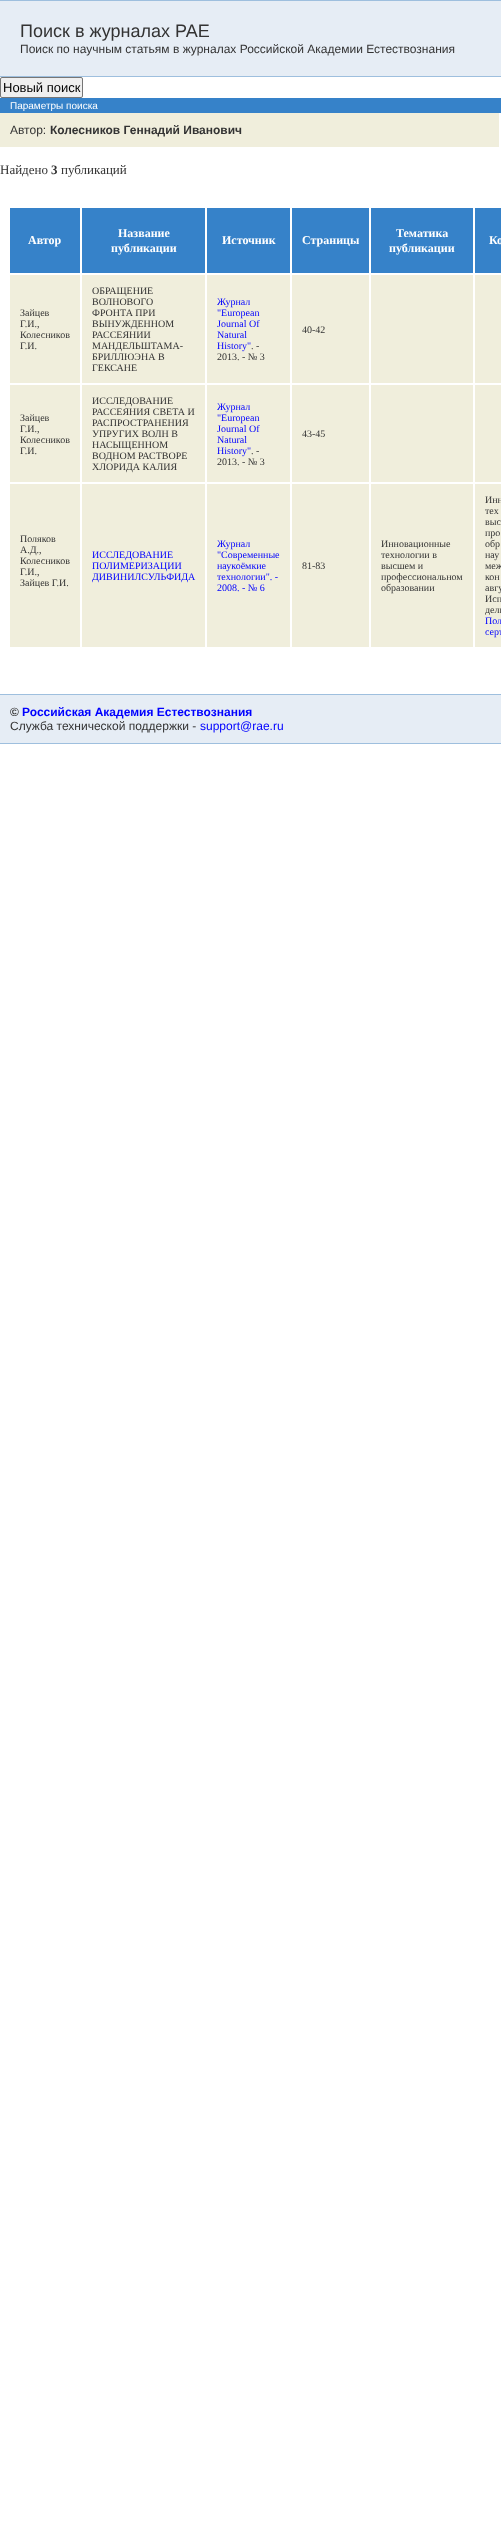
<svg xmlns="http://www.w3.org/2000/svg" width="501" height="2534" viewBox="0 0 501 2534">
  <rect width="100%" height="100%" fill="#fff"/>
  <path d="M0 1h501v75H0z" fill="#e6edf5"/>
  <path d="M0 0h501v1H0z" fill="#9ebfde"/>
  <path d="M0 76h501v1H0z" fill="#9ebfde"/>
  <rect x="0.5" y="77.5" width="82" height="20" rx="1.5" fill="#efefef" stroke="#767676"/>
  <path d="M0 98h501v15H0z" fill="#3682c9"/>
  <path d="M0 113h499v34H0z" fill="#f0eedc"/>
  <path d="M10 208h70v65H10z" fill="#3682c9"/>
  <path d="M82 208h123v65H82z" fill="#3682c9"/>
  <path d="M207 208h83v65H207z" fill="#3682c9"/>
  <path d="M292 208h77v65H292z" fill="#3682c9"/>
  <path d="M371 208h102v65H371z" fill="#3682c9"/>
  <path d="M475 208h26v65H475z" fill="#3682c9"/>
  <path d="M10 275h70v108H10z" fill="#f0eedc"/>
  <path d="M82 275h123v108H82z" fill="#f0eedc"/>
  <path d="M207 275h83v108H207z" fill="#f0eedc"/>
  <path d="M292 275h77v108H292z" fill="#f0eedc"/>
  <path d="M371 275h102v108H371z" fill="#f0eedc"/>
  <path d="M475 275h26v108H475z" fill="#f0eedc"/>
  <path d="M10 385h70v97H10z" fill="#f0eedc"/>
  <path d="M82 385h123v97H82z" fill="#f0eedc"/>
  <path d="M207 385h83v97H207z" fill="#f0eedc"/>
  <path d="M292 385h77v97H292z" fill="#f0eedc"/>
  <path d="M371 385h102v97H371z" fill="#f0eedc"/>
  <path d="M475 385h26v97H475z" fill="#f0eedc"/>
  <path d="M10 484h70v163H10z" fill="#f0eedc"/>
  <path d="M82 484h123v163H82z" fill="#f0eedc"/>
  <path d="M207 484h83v163H207z" fill="#f0eedc"/>
  <path d="M292 484h77v163H292z" fill="#f0eedc"/>
  <path d="M371 484h102v163H371z" fill="#f0eedc"/>
  <path d="M475 484h26v163H475z" fill="#f0eedc"/>
  <path d="M0 695h501v48H0z" fill="#e6edf5"/>
  <path d="M0 694h501v1H0z" fill="#9ebfde"/>
  <path d="M0 743h501v1H0z" fill="#9ebfde"/>
  <text x="20" y="37" font-family="Liberation Sans" font-size="18" fill="#333">Поиск в журналах РАЕ</text>
  <text x="20" y="53" font-family="Liberation Sans" font-size="12" fill="#333">Поиск по научным статьям в журналах Российской Академии Естествознания</text>
  <text x="3" y="92" font-family="Liberation Sans" font-size="13" fill="#000">Новый поиск</text>
  <text x="10" y="109" font-family="Liberation Sans" font-size="10" fill="#fff">Параметры поиска</text>
  <text x="10" y="134" font-family="Liberation Sans" font-size="12" fill="#333">Автор:</text>
  <text x="50" y="134" font-family="Liberation Sans" font-size="12" font-weight="bold" fill="#333">Колесников Геннадий Иванович</text>
  <text x="0" y="174" font-family="Liberation Serif" font-size="13" fill="#333">Найдено</text>
  <text x="51" y="174" font-family="Liberation Serif" font-size="13" font-weight="bold" fill="#333">3</text>
  <text x="61" y="174" font-family="Liberation Serif" font-size="13" fill="#333">публикаций</text>
  <g font-family="Liberation Serif" font-size="12" font-weight="bold" fill="#fff">
    <text x="28" y="244">Автор</text>
    <text x="118" y="237">Название</text>
    <text x="111" y="252">публикации</text>
    <text x="222" y="244">Источник</text>
    <text x="302" y="244">Страницы</text>
    <text x="396" y="237">Тематика</text>
    <text x="389" y="252">публикации</text>
    <text x="489" y="244">Ко</text>
  </g>
  <g font-family="Liberation Serif" font-size="10" fill="#333">
    <text x="20" y="316">Зайцев</text>
    <text x="20" y="327">Г.И.,</text>
    <text x="20" y="338">Колесников</text>
    <text x="20" y="349">Г.И.</text>
    <text x="92" y="294">ОБРАЩЕНИЕ</text>
    <text x="92" y="305">ВОЛНОВОГО</text>
    <text x="92" y="316">ФРОНТА ПРИ</text>
    <text x="92" y="327">ВЫНУЖДЕННОМ</text>
    <text x="92" y="338">РАССЕЯНИИ</text>
    <text x="92" y="349">МАНДЕЛЬШТАМА-</text>
    <text x="92" y="360">БРИЛЛЮЭНА В</text>
    <text x="92" y="371">ГЕКСАНЕ</text>
  </g>
  <g font-family="Liberation Serif" font-size="10" fill="#00f">
    <text x="217" y="305">Журнал</text>
    <text x="217" y="316">"European</text>
    <text x="217" y="327">Journal Of</text>
    <text x="217" y="338">Natural</text>
    <text x="217" y="349">History"</text>
  </g>
  <g font-family="Liberation Serif" font-size="10" fill="#333">
    <text x="251" y="349">. -</text>
    <text x="217" y="360">2013. - № 3</text>
    <text x="302" y="333">40-42</text>
    <text x="20" y="421">Зайцев</text>
    <text x="20" y="432">Г.И.,</text>
    <text x="20" y="443">Колесников</text>
    <text x="20" y="454">Г.И.</text>
    <text x="92" y="404">ИССЛЕДОВАНИЕ</text>
    <text x="92" y="415">РАССЕЯНИЯ СВЕТА И</text>
    <text x="92" y="426">РАСПРОСТРАНЕНИЯ</text>
    <text x="92" y="437">УПРУГИХ ВОЛН В</text>
    <text x="92" y="448">НАСЫЩЕННОМ</text>
    <text x="92" y="459">ВОДНОМ РАСТВОРЕ</text>
    <text x="92" y="470">ХЛОРИДА КАЛИЯ</text>
  </g>
  <g font-family="Liberation Serif" font-size="10" fill="#00f">
    <text x="217" y="410">Журнал</text>
    <text x="217" y="421">"European</text>
    <text x="217" y="432">Journal Of</text>
    <text x="217" y="443">Natural</text>
    <text x="217" y="454">History"</text>
  </g>
  <g font-family="Liberation Serif" font-size="10" fill="#333">
    <text x="251" y="454">. -</text>
    <text x="217" y="465">2013. - № 3</text>
    <text x="302" y="437">43-45</text>
    <text x="20" y="542">Поляков</text>
    <text x="20" y="553">А.Д.,</text>
    <text x="20" y="564">Колесников</text>
    <text x="20" y="575">Г.И.,</text>
    <text x="20" y="586">Зайцев Г.И.</text>
  </g>
  <g font-family="Liberation Serif" font-size="10" fill="#00f">
    <text x="92" y="558">ИССЛЕДОВАНИЕ</text>
    <text x="92" y="569">ПОЛИМЕРИЗАЦИИ</text>
    <text x="92" y="580">ДИВИНИЛСУЛЬФИДА</text>
    <text x="217" y="547">Журнал</text>
    <text x="217" y="558">"Современные</text>
    <text x="217" y="569">наукоёмкие</text>
    <text x="217" y="580">технологии". -</text>
    <text x="217" y="591">2008. - № 6</text>
  </g>
  <g font-family="Liberation Serif" font-size="10" fill="#333">
    <text x="302" y="569">81-83</text>
    <text x="381" y="547">Инновационные</text>
    <text x="381" y="558">технологии в</text>
    <text x="381" y="569">высшем и</text>
    <text x="381" y="580">профессиональном</text>
    <text x="381" y="591">образовании</text>
    <text x="485" y="503">Инн</text>
    <text x="485" y="514">тех</text>
    <text x="485" y="525">выс</text>
    <text x="485" y="536">про</text>
    <text x="485" y="547">обр</text>
    <text x="485" y="558">нау</text>
    <text x="485" y="569">меж</text>
    <text x="485" y="580">кон</text>
    <text x="485" y="591">авгу</text>
    <text x="485" y="602">Исп</text>
    <text x="485" y="613">дель</text>
  </g>
  <g font-family="Liberation Serif" font-size="10" fill="#00f">
    <text x="485" y="624">Пол</text>
    <text x="485" y="635">серт</text>
  </g>
  <text x="10" y="716" font-family="Liberation Sans" font-size="12" font-weight="bold" fill="#333">©</text>
  <text x="22" y="716" font-family="Liberation Sans" font-size="12" font-weight="bold" fill="#00f">Российская Академия Естествознания</text>
  <text x="10" y="730" font-family="Liberation Sans" font-size="12" fill="#333">Служба технической поддержки -</text>
  <text x="200" y="730" font-family="Liberation Sans" font-size="12" fill="#00f">support@rae.ru</text>
</svg>
